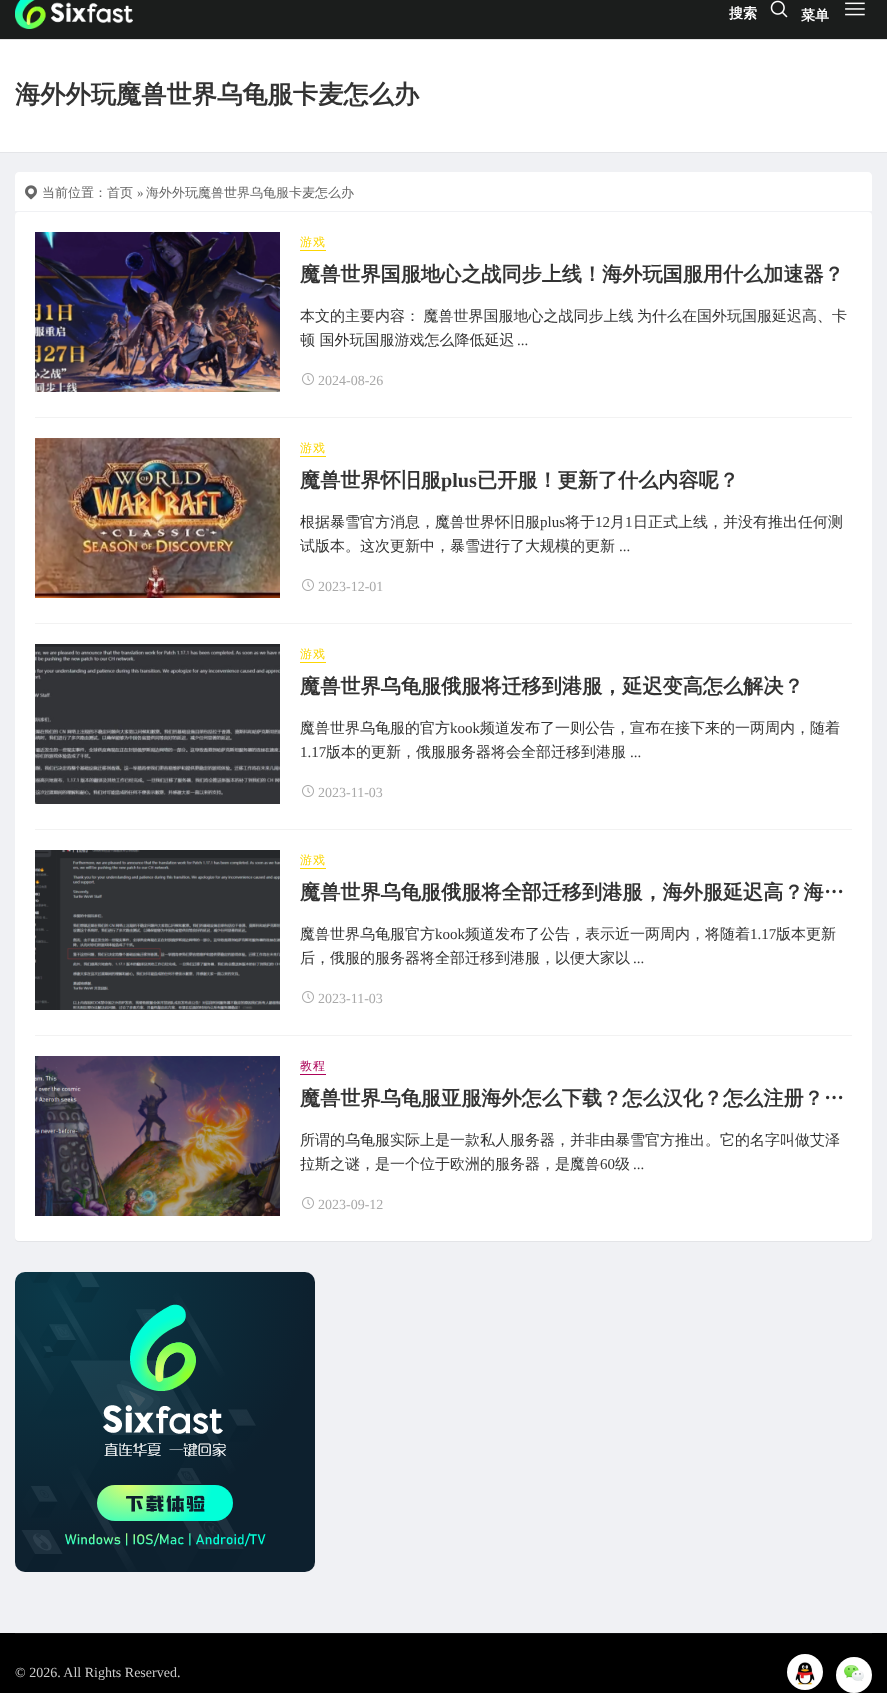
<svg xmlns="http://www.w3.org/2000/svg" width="887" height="1693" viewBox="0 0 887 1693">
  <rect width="100%" height="100%" fill="#f0f1f4"/>
  <path d="M-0.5 38.5h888v114H-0.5z" fill="none" stroke="#e4e5e8"/>
  <path d="M0 39h887v1H0z" fill="#e4e4e4"/>
  <path d="M0 0h887v39H0z" fill="#1b1d1c"/>
  <image x="15" y="0" width="118" height="29" href="img/1.png"/>
  <image x="770" y="0" width="18" height="18" href="img/2.png"/>
  <image x="845" y="2" width="20" height="14" href="img/3.png"/>
  <path d="M0 40h887v112H0z" fill="#fff"/>
  <path d="M19 172H868C870 172 872 174 872 176V211H15V176C15 174 17 172 19 172Z" fill="#fff"/>
  <image x="25" y="185" width="12" height="15" href="img/4.png"/>
  <rect x="15" y="213" width="857" height="1029" rx="4" fill="#0000000d" filter="blur(0.5px)"/>
  <rect x="15" y="212" width="857" height="1029" rx="4" fill="#fff"/>
  <path d="M35 417h817v1H35z" fill="#f2f2f2"/>
  <image x="35" y="232" width="245" height="160" href="img/5.png"/>
  <path d="M300 250h26v1H300z" fill="#fcd603"/>
  <image x="302" y="373" width="12" height="12" href="img/6.png"/>
  <path d="M35 623h817v1H35z" fill="#f2f2f2"/>
  <image x="35" y="438" width="245" height="160" href="img/7.png"/>
  <path d="M300 456h26v1H300z" fill="#fcd603"/>
  <image x="302" y="579" width="12" height="12" href="img/6.png"/>
  <path d="M35 829h817v1H35z" fill="#f2f2f2"/>
  <image x="35" y="644" width="245" height="160" href="img/8.png"/>
  <path d="M300 662h26v1H300z" fill="#fcd603"/>
  <image x="302" y="785" width="12" height="12" href="img/6.png"/>
  <path d="M35 1035h817v1H35z" fill="#f2f2f2"/>
  <image x="35" y="850" width="245" height="160" href="img/9.png"/>
  <path d="M300 868h26v1H300z" fill="#fcd603"/>
  <image x="302" y="991" width="12" height="12" href="img/6.png"/>
  <image x="35" y="1056" width="245" height="160" href="img/10.png"/>
  <path d="M300 1074h26v1H300z" fill="#ac0258"/>
  <image x="302" y="1197" width="12" height="12" href="img/6.png"/>
  <image x="15" y="1272" width="300" height="300" href="img/11.png"/>
  <path d="M0 1633h887v60H0z" fill="#000"/>
  <path d="M15 1633h857v1H15z" fill="#0f0f0f"/>
  <circle cx="805" cy="1672" r="18" fill="#fff"/>
  <image x="795" y="1662" width="20" height="23" href="img/12.png"/>
  <circle cx="854" cy="1675" r="18" fill="#fff"/>
  <image x="844" y="1665" width="20" height="16" href="img/13.png"/>
  <g font-family="WenQuanYi Zen Hei" font-size="14" font-weight="bold" fill="#fff">
    <text x="729" y="18">搜索</text>
    <text x="801" y="20">菜单</text>
  </g>
  <text x="15" y="103" font-family="WenQuanYi Zen Hei" font-size="25.25" font-weight="bold" fill="#333">海外外玩魔兽世界乌龟服卡麦怎么办</text>
  <text x="42" y="197" font-family="WenQuanYi Zen Hei" font-size="13" font-weight="500" fill="#666">当前位置：首页</text>
  <text x="137" y="197" font-family="Liberation Serif" font-size="13" fill="#666">»</text>
  <text x="146" y="197" font-family="WenQuanYi Zen Hei" font-size="13" font-weight="500" fill="#666">海外外玩魔兽世界乌龟服卡麦怎么办</text>
  <text x="300" y="246" font-family="WenQuanYi Zen Hei" font-size="12" font-weight="500" letter-spacing="1" fill="#fcd603">游戏</text>
  <text x="300" y="281" font-family="WenQuanYi Zen Hei" font-size="20.15" font-weight="bold" fill="#333">魔兽世界国服地心之战同步上线！海外玩国服用什么加速器？</text>
  <g font-family="WenQuanYi Zen Hei" font-size="15" font-weight="500" fill="#333">
    <text x="300" y="321" word-spacing="-1">本文的主要内容： 魔兽世界国服地心之战同步上线 为什么在国外玩国服延迟高、卡</text>
    <text x="300" y="345">顿 国外玩国服游戏怎么降低延迟</text>
  </g>
  <text x="517" y="345" font-family="Liberation Serif" font-size="15" fill="#333">...</text>
  <text x="318" y="385" font-family="Liberation Serif" font-size="14" fill="#a8a8a8">2024-08-26</text>
  <text x="300" y="452" font-family="WenQuanYi Zen Hei" font-size="12" font-weight="500" letter-spacing="1" fill="#fcd603">游戏</text>
  <text x="300" y="487" font-family="WenQuanYi Zen Hei" font-size="20.15" font-weight="bold" fill="#333">魔兽世界怀旧服</text>
  <text x="441" y="487" font-family="Liberation Serif" font-size="20.15" font-weight="bold" fill="#333">plus</text>
  <text x="477" y="487" font-family="WenQuanYi Zen Hei" font-size="20.15" font-weight="bold" fill="#333">已开服！更新了什么内容呢？</text>
  <text x="300" y="527" font-family="WenQuanYi Zen Hei" font-size="15" font-weight="500" fill="#333">根据暴雪官方消息，魔兽世界怀旧服</text>
  <text x="540" y="527" font-family="Liberation Serif" font-size="15" fill="#333">plus</text>
  <text x="565" y="527" font-family="WenQuanYi Zen Hei" font-size="15" font-weight="500" fill="#333">将于</text>
  <text x="595" y="527" font-family="Liberation Serif" font-size="15" fill="#333">12</text>
  <text x="610" y="527" font-family="WenQuanYi Zen Hei" font-size="15" font-weight="500" fill="#333">月</text>
  <text x="625" y="527" font-family="Liberation Serif" font-size="15" fill="#333">1</text>
  <g font-family="WenQuanYi Zen Hei" font-size="15" font-weight="500" fill="#333">
    <text x="633" y="527">日正式上线，并没有推出任何测</text>
    <text x="300" y="551">试版本。这次更新中，暴雪进行了大规模的更新</text>
  </g>
  <text x="619" y="551" font-family="Liberation Serif" font-size="15" fill="#333">...</text>
  <text x="318" y="591" font-family="Liberation Serif" font-size="14" fill="#a8a8a8">2023-12-01</text>
  <text x="300" y="658" font-family="WenQuanYi Zen Hei" font-size="12" font-weight="500" letter-spacing="1" fill="#fcd603">游戏</text>
  <text x="300" y="693" font-family="WenQuanYi Zen Hei" font-size="20.15" font-weight="bold" fill="#333">魔兽世界乌龟服俄服将迁移到港服，延迟变高怎么解决？</text>
  <text x="300" y="733" font-family="WenQuanYi Zen Hei" font-size="15" font-weight="500" fill="#333">魔兽世界乌龟服的官方</text>
  <text x="450" y="733" font-family="Liberation Serif" font-size="15" fill="#333">kook</text>
  <text x="480" y="733" font-family="WenQuanYi Zen Hei" font-size="15" font-weight="500" fill="#333">频道发布了一则公告，宣布在接下来的一两周内，随着</text>
  <text x="300" y="757" font-family="Liberation Serif" font-size="15" fill="#333">1.17</text>
  <text x="326" y="757" font-family="WenQuanYi Zen Hei" font-size="15" font-weight="500" fill="#333">版本的更新，俄服服务器将会全部迁移到港服</text>
  <text x="630" y="757" font-family="Liberation Serif" font-size="15" fill="#333">...</text>
  <text x="318" y="797" font-family="Liberation Serif" font-size="14" fill="#a8a8a8">2023-11-03</text>
  <text x="300" y="864" font-family="WenQuanYi Zen Hei" font-size="12" font-weight="500" letter-spacing="1" fill="#fcd603">游戏</text>
  <text x="300" y="899" font-family="WenQuanYi Zen Hei" font-size="20.15" font-weight="bold" fill="#333">魔兽世界乌龟服俄服将全部迁移到港服，海外服延迟高？海…</text>
  <text x="300" y="939" font-family="WenQuanYi Zen Hei" font-size="15" font-weight="500" fill="#333">魔兽世界乌龟服官方</text>
  <text x="435" y="939" font-family="Liberation Serif" font-size="15" fill="#333">kook</text>
  <text x="465" y="939" font-family="WenQuanYi Zen Hei" font-size="15" font-weight="500" fill="#333">频道发布了公告，表示近一两周内，将随着</text>
  <text x="750" y="939" font-family="Liberation Serif" font-size="15" fill="#333">1.17</text>
  <g font-family="WenQuanYi Zen Hei" font-size="15" font-weight="500" fill="#333">
    <text x="776" y="939">版本更新</text>
    <text x="300" y="963">后，俄服的服务器将全部迁移到港服，以便大家以</text>
  </g>
  <text x="633" y="963" font-family="Liberation Serif" font-size="15" fill="#333">...</text>
  <text x="318" y="1003" font-family="Liberation Serif" font-size="14" fill="#a8a8a8">2023-11-03</text>
  <text x="300" y="1070" font-family="WenQuanYi Zen Hei" font-size="12" font-weight="500" letter-spacing="1" fill="#ac0258">教程</text>
  <text x="300" y="1105" font-family="WenQuanYi Zen Hei" font-size="20.15" font-weight="bold" fill="#333">魔兽世界乌龟服亚服海外怎么下载？怎么汉化？怎么注册？…</text>
  <g font-family="WenQuanYi Zen Hei" font-size="15" font-weight="500" fill="#333">
    <text x="300" y="1145">所谓的乌龟服实际上是一款私人服务器，并非由暴雪官方推出。它的名字叫做艾泽</text>
    <text x="300" y="1169">拉斯之谜，是一个位于欧洲的服务器，是魔兽</text>
  </g>
  <text x="600" y="1169" font-family="Liberation Serif" font-size="15" fill="#333">60</text>
  <text x="615" y="1169" font-family="WenQuanYi Zen Hei" font-size="15" font-weight="500" fill="#333">级</text>
  <text x="633" y="1169" font-family="Liberation Serif" font-size="15" fill="#333">...</text>
  <text x="318" y="1209" font-family="Liberation Serif" font-size="14" fill="#a8a8a8">2023-09-12</text>
  <text x="15" y="1677" font-family="Liberation Serif" font-size="14" fill="#ccc">© 2026. All Rights Reserved.</text>
</svg>
